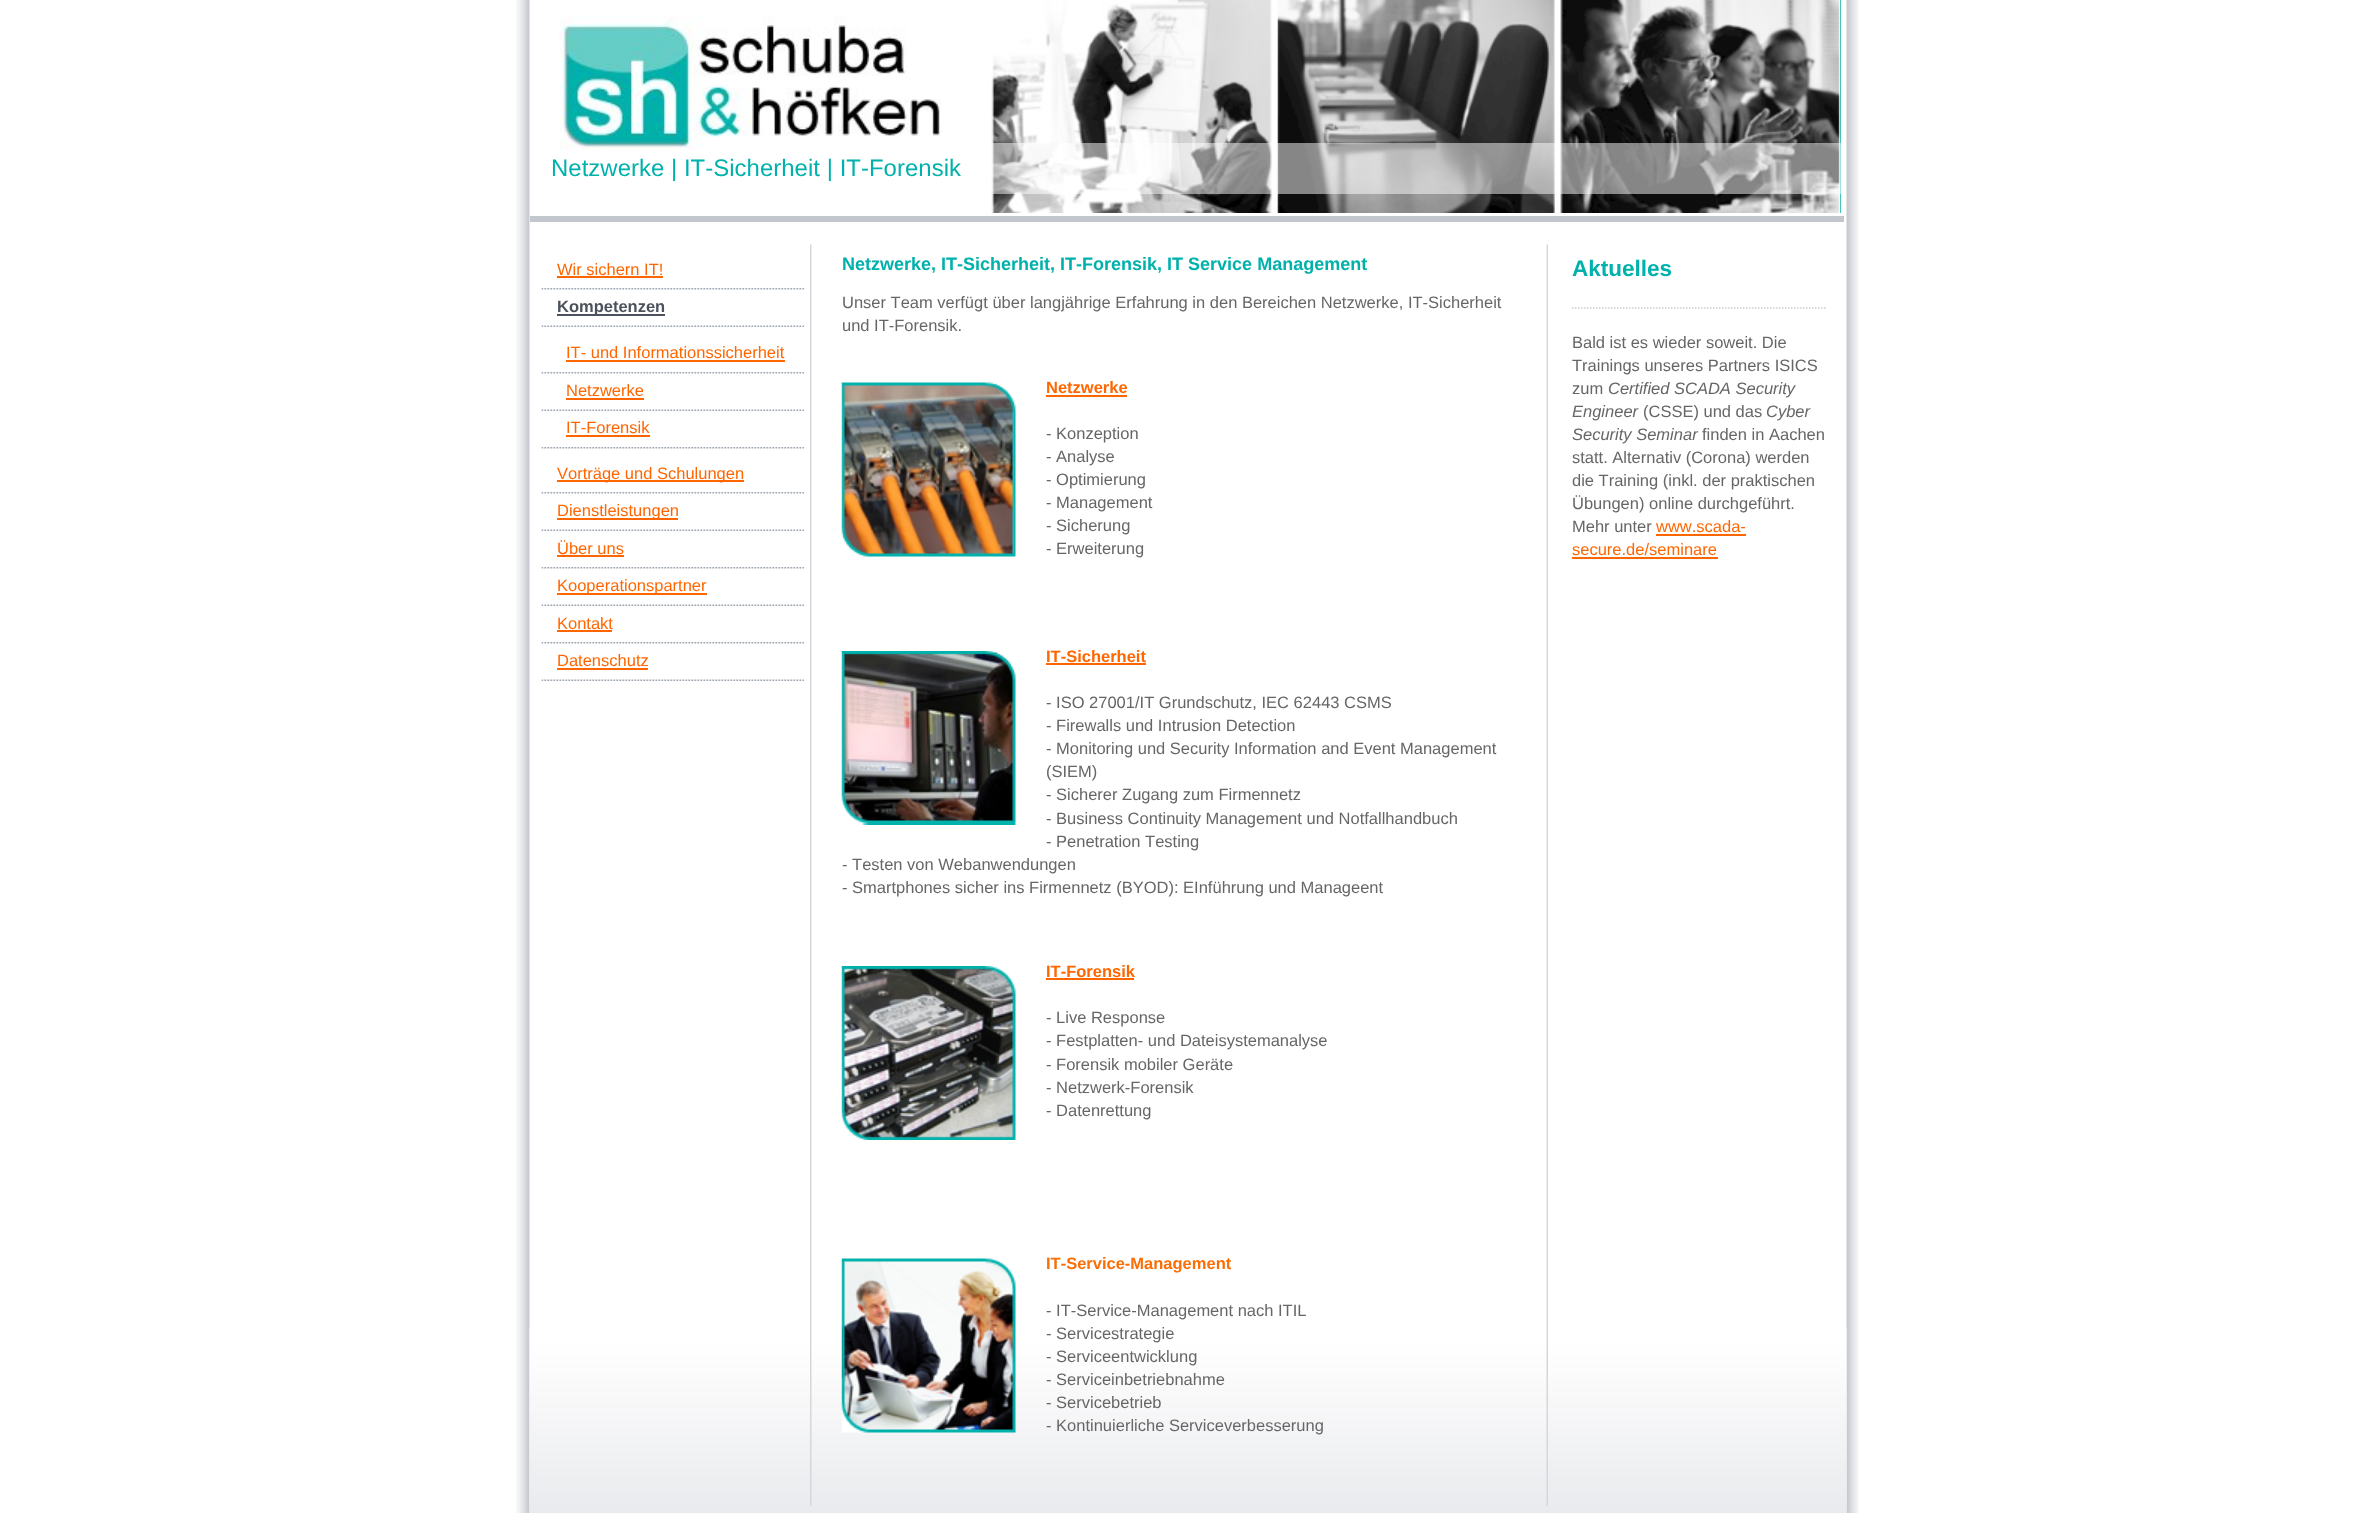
<svg xmlns="http://www.w3.org/2000/svg" width="2376" height="1513" viewBox="0 0 2376 1513">
  <style>*{font-kerning:none!important;font-variant-ligatures:none!important}</style>
  <rect width="100%" height="100%" fill="#fff"/>
  <image x="516" y="0" width="1343" height="1513" href="img/1.png"/>
  <path d="M530 216h1314v6H530z" fill="#c2c6cd"/>
  <path d="M1840 0h1v213H1840z" fill="#00b1ac"/>
  <image x="533" y="0" width="1308" height="213" href="img/2.png"/>
  <image x="559" y="16" width="383" height="134" href="img/3.png"/>
  <path d="M991 143h850v51H991z" fill="#ffffff80"/>
  <image x="529" y="1329" width="1318" height="184" href="img/4.png"/>
  <image x="810" y="244" width="738" height="1262" href="img/5.png"/>
  <image x="541" y="288" width="263" height="2" href="img/6.png"/>
  <path d="M557 276h106v2H557z" fill="#f60"/>
  <image x="541" y="325" width="263" height="2" href="img/7.png"/>
  <path d="M557 314h108v2H557z" fill="#4b525c"/>
  <image x="541" y="372" width="263" height="2" href="img/6.png"/>
  <path d="M566 360h219v2H566z" fill="#f60"/>
  <image x="541" y="409" width="263" height="2" href="img/7.png"/>
  <path d="M566 398h78v2H566z" fill="#f60"/>
  <image x="541" y="447" width="263" height="2" href="img/6.png"/>
  <path d="M566 435h84v2H566z" fill="#f60"/>
  <image x="541" y="492" width="263" height="2" href="img/6.png"/>
  <path d="M557 480h187v2H557z" fill="#f60"/>
  <image x="541" y="529" width="263" height="2" href="img/7.png"/>
  <path d="M557 518h121v2H557z" fill="#f60"/>
  <image x="541" y="567" width="263" height="2" href="img/6.png"/>
  <path d="M557 555h67v2H557z" fill="#f60"/>
  <image x="541" y="604" width="263" height="2" href="img/7.png"/>
  <path d="M557 593h150v2H557z" fill="#f60"/>
  <image x="541" y="642" width="263" height="2" href="img/6.png"/>
  <path d="M557 630h55v2H557z" fill="#f60"/>
  <image x="541" y="679" width="263" height="2" href="img/7.png"/>
  <path d="M557 668h91v2H557z" fill="#f60"/>
  <image x="841" y="382" width="175" height="175" href="img/8.png"/>
  <path d="M1046 395h81v2H1046z" fill="#f60"/>
  <path d="M1046 663h100v2H1046z" fill="#f60"/>
  <image x="841" y="651" width="175" height="174" href="img/9.png"/>
  <image x="841" y="966" width="175" height="174" href="img/10.png"/>
  <path d="M1046 978h88v2H1046z" fill="#f60"/>
  <image x="841" y="1258" width="175" height="175" href="img/11.png"/>
  <path d="M1572 308H1827" fill="none" stroke="#ccc" stroke-width="1.5" stroke-dasharray="1.5 1.5"/>
  <path d="M1656 534h90v2H1656z" fill="#f60"/>
  <path d="M1572 557h146v2H1572z" fill="#f60"/>
  <text x="551" y="176" font-family="Liberation Sans" font-size="23.9" letter-spacing="0.05" fill="#00b1ac">Netzwerke | IT-Sicherheit | IT-Forensik</text>
  <text x="557" y="275" font-family="Liberation Sans" font-size="16.5" fill="#f60">Wir sichern IT!</text>
  <text x="557" y="312" font-family="Liberation Sans" font-size="16.5" font-weight="bold" fill="#4b525c">Kompetenzen</text>
  <g font-family="Liberation Sans" font-size="16.5" fill="#f60">
    <text x="566" y="358">IT- und Informationssicherheit</text>
    <text x="566" y="396">Netzwerke</text>
    <text x="566" y="433">IT-Forensik</text>
    <text x="557" y="479">Vorträge und Schulungen</text>
    <text x="557" y="516">Dienstleistungen</text>
    <text x="557" y="554">Über uns</text>
    <text x="557" y="591">Kooperationspartner</text>
    <text x="557" y="629">Kontakt</text>
    <text x="557" y="666">Datenschutz</text>
  </g>
  <text x="842" y="270" font-family="Liberation Sans" font-size="18" font-weight="bold" fill="#00b1ac">Netzwerke, IT-Sicherheit, IT-Forensik, IT Service Management</text>
  <g font-family="Liberation Sans" font-size="16.5" fill="#666">
    <text x="842" y="308">Unser Team verfügt über langjährige Erfahrung in den Bereichen Netzwerke, IT-Sicherheit</text>
    <text x="842" y="331">und IT-Forensik.</text>
  </g>
  <text x="1046" y="393" font-family="Liberation Sans" font-size="16.5" font-weight="bold" fill="#f60">Netzwerke</text>
  <g font-family="Liberation Sans" font-size="16.5" fill="#666">
    <text x="1046" y="439">- Konzeption</text>
    <text x="1046" y="462">- Analyse</text>
    <text x="1046" y="485">- Optimierung</text>
    <text x="1046" y="508">- Management</text>
    <text x="1046" y="531">- Sicherung</text>
    <text x="1046" y="554">- Erweiterung</text>
  </g>
  <text x="1046" y="662" font-family="Liberation Sans" font-size="16.5" font-weight="bold" fill="#f60">IT-Sicherheit</text>
  <g font-family="Liberation Sans" font-size="16.5" fill="#666">
    <text x="1046" y="708">- ISO 27001/IT Grundschutz, IEC 62443 CSMS</text>
    <text x="1046" y="731">- Firewalls und Intrusion Detection</text>
    <text x="1046" y="754">- Monitoring und Security Information and Event Management</text>
    <text x="1046" y="777">(SIEM)</text>
    <text x="1046" y="800">- Sicherer Zugang zum Firmennetz</text>
    <text x="1046" y="824">- Business Continuity Management und Notfallhandbuch</text>
    <text x="1046" y="847">- Penetration Testing</text>
    <text x="842" y="870">- Testen von Webanwendungen</text>
    <text x="842" y="893">- Smartphones sicher ins Firmennetz (BYOD): EInführung und Manageent</text>
  </g>
  <text x="1046" y="977" font-family="Liberation Sans" font-size="16.5" font-weight="bold" fill="#f60">IT-Forensik</text>
  <g font-family="Liberation Sans" font-size="16.5" fill="#666">
    <text x="1046" y="1023">- Live Response</text>
    <text x="1046" y="1046">- Festplatten- und Dateisystemanalyse</text>
    <text x="1046" y="1070">- Forensik mobiler Geräte</text>
    <text x="1046" y="1093">- Netzwerk-Forensik</text>
    <text x="1046" y="1116">- Datenrettung</text>
  </g>
  <text x="1046" y="1269" font-family="Liberation Sans" font-size="16.5" font-weight="bold" fill="#fb6e05">IT-Service-Management</text>
  <g font-family="Liberation Sans" font-size="16.5" fill="#666">
    <text x="1046" y="1316">- IT-Service-Management nach ITIL</text>
    <text x="1046" y="1339">- Servicestrategie</text>
    <text x="1046" y="1362">- Serviceentwicklung</text>
    <text x="1046" y="1385">- Serviceinbetriebnahme</text>
    <text x="1046" y="1408">- Servicebetrieb</text>
    <text x="1046" y="1431">- Kontinuierliche Serviceverbesserung</text>
  </g>
  <text x="1572" y="276" font-family="Liberation Sans" font-size="22.5" font-weight="bold" fill="#00b1ac">Aktuelles</text>
  <g font-family="Liberation Sans" font-size="16.5" fill="#666">
    <text x="1572" y="348">Bald ist es wieder soweit. Die</text>
    <text x="1572" y="371">Trainings unseres Partners ISICS</text>
    <text x="1572" y="394">zum</text>
  </g>
  <g font-family="Liberation Sans" font-size="16.5" font-style="italic" fill="#666">
    <text x="1608" y="394">Certified SCADA Security</text>
    <text x="1572" y="417">Engineer</text>
  </g>
  <text x="1643" y="417" font-family="Liberation Sans" font-size="16.5" fill="#666">(CSSE) und das</text>
  <g font-family="Liberation Sans" font-size="16.5" font-style="italic" fill="#666">
    <text x="1766" y="417">Cyber</text>
    <text x="1572" y="440">Security Seminar</text>
  </g>
  <g font-family="Liberation Sans" font-size="16.5" fill="#666">
    <text x="1702" y="440">finden in Aachen</text>
    <text x="1572" y="463">statt. Alternativ (Corona) werden</text>
    <text x="1572" y="486">die Training (inkl. der praktischen</text>
    <text x="1572" y="509">Übungen) online durchgeführt.</text>
    <text x="1572" y="532">Mehr unter</text>
  </g>
  <g font-family="Liberation Sans" font-size="16.5" fill="#f60">
    <text x="1656" y="532">www.scada-</text>
    <text x="1572" y="555">secure.de/seminare</text>
  </g>
</svg>
